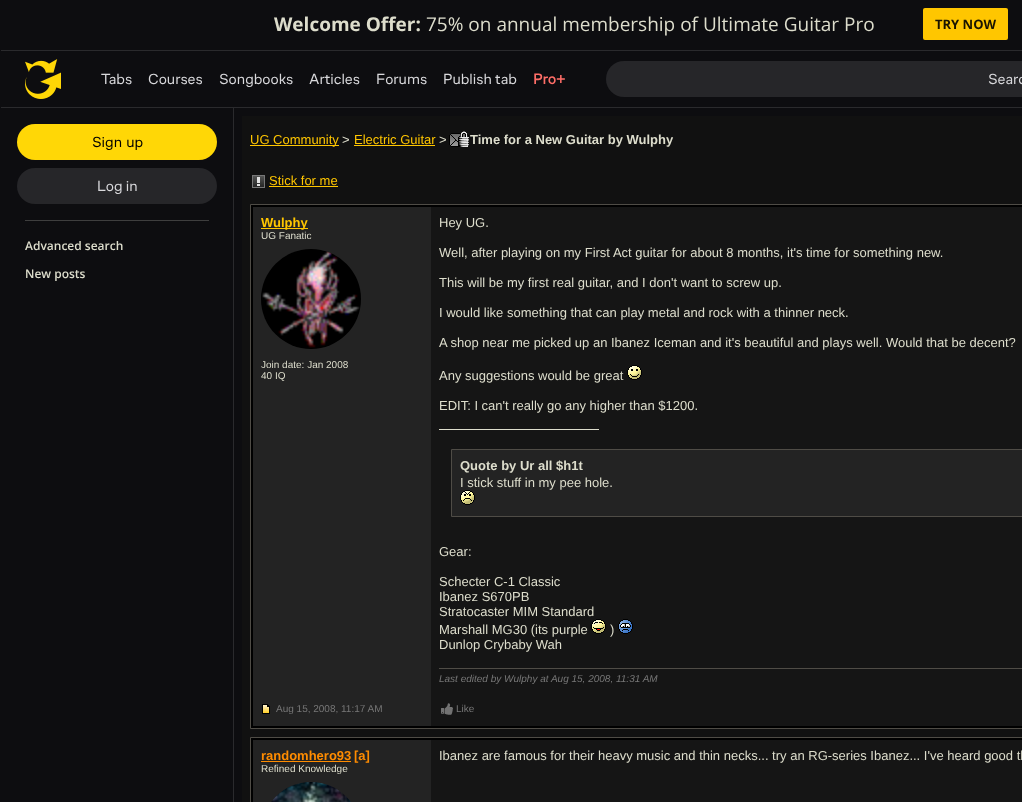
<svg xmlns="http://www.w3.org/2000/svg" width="1022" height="802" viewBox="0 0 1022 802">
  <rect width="100%" height="100%" fill="#0d0d10"/>
  <path d="M1 50h1021v1H1z" fill="#2a2a2d"/>
  <rect x="923" y="8" width="85" height="32" rx="2" fill="#ffc600"/>
  <path d="M1 107h1021v1H1z" fill="#2a2a2d"/>
  <image x="25" y="59" width="36" height="40" href="img/1.png"/>
  <rect x="606" y="61" width="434" height="36" rx="18" fill="#262629"/>
  <rect x="17" y="124" width="200" height="36" rx="18" fill="#ffd706"/>
  <rect x="17" y="168" width="200" height="36" rx="18" fill="#262629"/>
  <path d="M25 220h184v1H25z" fill="#3e3e3e"/>
  <path d="M233 108h1v694H233z" fill="#2a2a2d"/>
  <path d="M242 116h780v686H242z" fill="#111"/>
  <path d="M250 145h89v1H250z" fill="#ffc600"/>
  <path d="M354 145h81v1H354z" fill="#ffc600"/>
  <image x="449" y="131" width="20" height="16" href="img/2.png"/>
  <image x="252" y="175" width="13" height="13" href="img/3.png"/>
  <path d="M269 186h69v1H269z" fill="#ffc600"/>
  <path d="M431 207h591v519H431z" fill="#151515"/>
  <path d="M252 206h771v521H252z" fill="none" stroke="#000" stroke-width="2"/>
  <path d="M250.5 204.5h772v524H250.5z" fill="none" stroke="#4f4c46"/>
  <path d="M253 207h178v519H253z" fill="#232323"/>
  <path d="M261 228h47v1H261z" fill="#ffc600"/>
  <image x="261" y="249" width="100" height="100" href="img/4.png"/>
  <image x="627" y="365" width="15" height="15" href="img/5.png"/>
  <path d="M439 429h160v1H439z" fill="#ddc"/>
  <path d="M451.5 449.5h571v67H451.5z" fill="#232323" stroke="#4f4c46"/>
  <image x="460" y="490" width="15" height="15" href="img/6.png"/>
  <image x="591" y="619" width="15" height="15" href="img/7.png"/>
  <image x="618" y="619" width="15" height="15" href="img/8.png"/>
  <path d="M439 668h583v1H439z" fill="#4f4c46"/>
  <image x="262" y="704" width="8" height="10" href="img/9.png"/>
  <image x="441" y="703" width="12" height="12" href="img/10.png"/>
  <path d="M431 740h591v62H431z" fill="#151515"/>
  <path d="M252 739h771v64H252z" fill="none" stroke="#000" stroke-width="2"/>
  <path d="M250.5 737.5h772v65H250.5z" fill="none" stroke="#4f4c46"/>
  <path d="M253 740h178v62H253z" fill="#232323"/>
  <path d="M261 761h90v1H261z" fill="#ff8c00"/>
  <image x="271" y="782" width="80" height="20" href="img/11.png"/>
  <text x="274" y="31" font-family="Open Sans" font-size="19" font-weight="bold" fill="#ddc">Welcome Offer:</text>
  <text x="426" y="31" font-family="Open Sans" font-size="19" fill="#ddc">75% on annual membership of Ultimate Guitar Pro</text>
  <text x="935" y="29" font-family="Open Sans" font-size="13" font-weight="bold" fill="#1a1400">TRY NOW</text>
  <g font-family="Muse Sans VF" font-size="15" fill="#d9d9dc">
    <text x="101" y="84">Tabs</text>
    <text x="148" y="84">Courses</text>
    <text x="219" y="84">Songbooks</text>
    <text x="309" y="84">Articles</text>
    <text x="376" y="84">Forums</text>
    <text x="443" y="84">Publish tab</text>
  </g>
  <text x="533" y="84" font-family="Muse Sans VF" font-size="15" font-weight="bold" fill="#ff6e68">Pro+</text>
  <text x="988" y="84" font-family="Muse Sans VF" font-size="15" fill="#d9d9dc">Searc</text>
  <text x="92" y="147" word-spacing="1" font-family="Muse Sans VF" font-size="15" fill="#000">Sign up</text>
  <text x="97" y="191" font-family="Muse Sans VF" font-size="15" fill="#d9d9dc">Log in</text>
  <g font-family="Open Sans" font-size="12" font-weight="600" fill="#ddc">
    <text x="25" y="250">Advanced search</text>
    <text x="25" y="278">New posts</text>
  </g>
  <text x="250" y="144" font-family="Liberation Sans" font-size="13" fill="#ffc600">UG Community</text>
  <text x="342" y="144" font-family="Liberation Sans" font-size="13" fill="#ddc">&gt;</text>
  <text x="354" y="144" font-family="Liberation Sans" font-size="13" fill="#ffc600">Electric Guitar</text>
  <text x="439" y="144" font-family="Liberation Sans" font-size="13" fill="#ddc">&gt;</text>
  <text x="470" y="144" font-family="Liberation Sans" font-size="13" font-weight="bold" fill="#ddc">Time for a New Guitar by Wulphy</text>
  <text x="269" y="185" font-family="Liberation Sans" font-size="13" fill="#ffc600">Stick for me</text>
  <text x="261" y="227" font-family="Liberation Sans" font-size="13" font-weight="bold" fill="#ffc600">Wulphy</text>
  <g font-family="Liberation Sans" font-size="10" fill="#ddc">
    <text x="261" y="239">UG Fanatic</text>
    <text x="261" y="368">Join date: Jan 2008</text>
    <text x="261" y="379">40 IQ</text>
  </g>
  <g font-family="Liberation Sans" font-size="13" fill="#ddc">
    <text x="439" y="227">Hey UG.</text>
    <text x="439" y="257">Well, after playing on my First Act guitar for about 8 months, it's time for something new.</text>
    <text x="439" y="287">This will be my first real guitar, and I don't want to screw up.</text>
    <text x="439" y="317">I would like something that can play metal and rock with a thinner neck.</text>
    <text x="439" y="347">A shop near me picked up an Ibanez Iceman and it's beautiful and plays well. Would that be decent?</text>
    <text x="439" y="380">Any suggestions would be great</text>
    <text x="439" y="410">EDIT: I can't really go any higher than $1200.</text>
  </g>
  <text x="460" y="470" font-family="Liberation Sans" font-size="13" font-weight="bold" fill="#ddc">Quote by Ur all $h1t</text>
  <g font-family="Liberation Sans" font-size="13" fill="#ddc">
    <text x="460" y="487">I stick stuff in my pee hole.</text>
    <text x="439" y="556">Gear:</text>
    <text x="439" y="586">Schecter C-1 Classic</text>
    <text x="439" y="601">Ibanez S670PB</text>
    <text x="439" y="616">Stratocaster MIM Standard</text>
    <text x="439" y="634">Marshall MG30 (its purple</text>
    <text x="610" y="634">)</text>
    <text x="439" y="649">Dunlop Crybaby Wah</text>
  </g>
  <text x="439" y="682" font-family="Liberation Sans" font-size="10" font-style="italic" fill="#777">Last edited by Wulphy at Aug 15, 2008, 11:31 AM</text>
  <g font-family="Liberation Sans" font-size="10" fill="#777">
    <text x="276" y="712">Aug 15, 2008, 11:17 AM</text>
    <text x="456" y="712">Like</text>
  </g>
  <g font-family="Liberation Sans" font-size="13" font-weight="bold" fill="#ff8c00">
    <text x="261" y="760">randomhero93</text>
    <text x="354" y="760">[a]</text>
  </g>
  <text x="261" y="772" font-family="Liberation Sans" font-size="10" fill="#ddc">Refined Knowledge</text>
  <text x="439" y="760" font-family="Liberation Sans" font-size="13" fill="#ddc">Ibanez are famous for their heavy music and thin necks... try an RG-series Ibanez... I've heard good th</text>
</svg>
